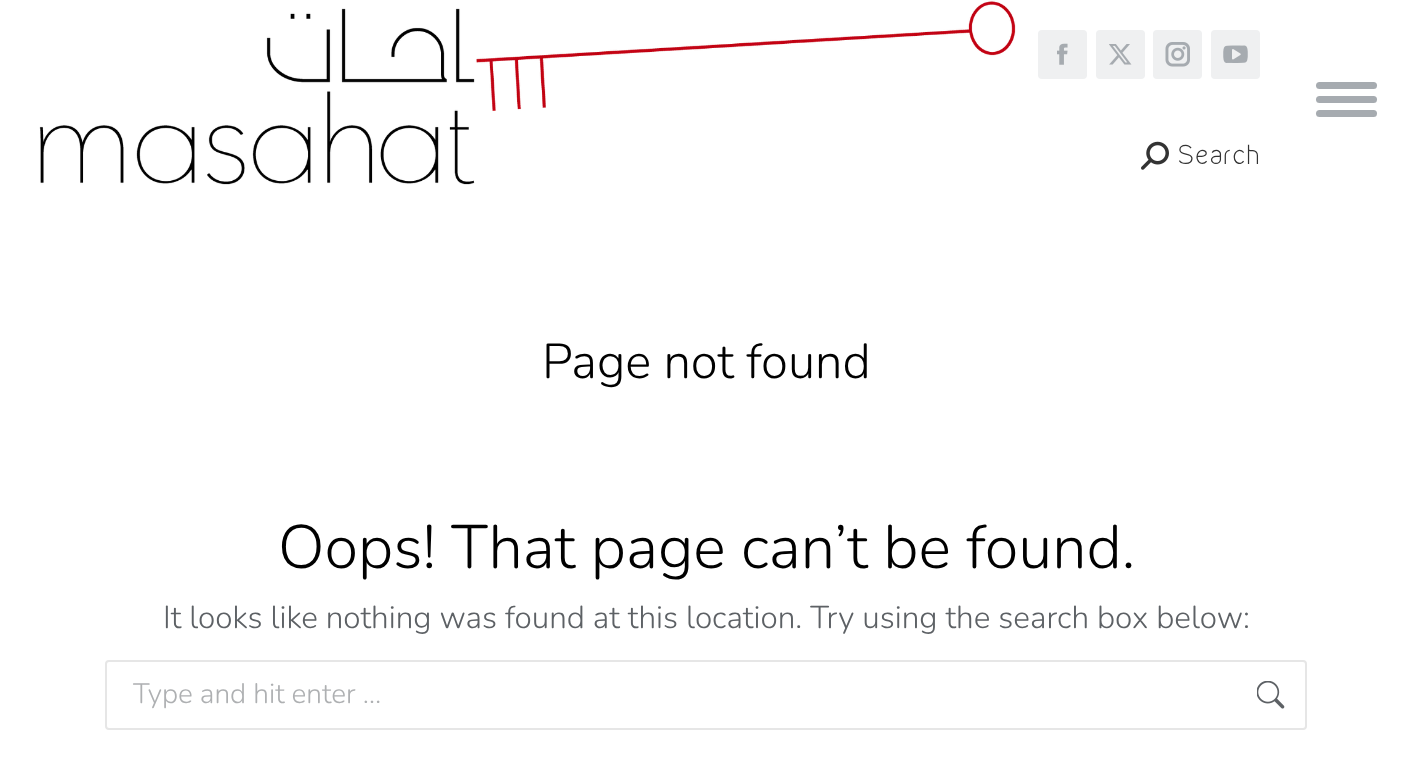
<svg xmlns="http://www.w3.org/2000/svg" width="1411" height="784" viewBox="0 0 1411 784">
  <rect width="100%" height="100%" fill="#fff"/>
  <image x="39" y="0" width="977" height="185" href="img/1.png"/>
  <rect x="1316" y="82" width="61" height="7" rx="3.5" fill="#a6abb0"/>
  <rect x="1316" y="96" width="61" height="7" rx="3.5" fill="#a6abb0"/>
  <rect x="1316" y="110" width="61" height="7" rx="3.5" fill="#a6abb0"/>
  <rect x="1038" y="30" width="49" height="49" rx="4" fill="#eff0f1"/>
  <image x="1057" y="43" width="11" height="22" href="img/2.png"/>
  <rect x="1096" y="30" width="49" height="49" rx="4" fill="#eff0f1"/>
  <image x="1109" y="44" width="23" height="21" href="img/3.png"/>
  <rect x="1153" y="30" width="49" height="49" rx="4" fill="#eff0f1"/>
  <image x="1165" y="42" width="25" height="25" href="img/4.png"/>
  <rect x="1211" y="30" width="49" height="49" rx="4" fill="#eff0f1"/>
  <image x="1223" y="45" width="25" height="18" href="img/5.png"/>
  <image x="1141" y="141" width="28" height="29" href="img/6.png"/>
  <rect x="106" y="661" width="1200" height="68" rx="3" fill="none" stroke="#e6e6e6" stroke-width="2"/>
  <image x="1257" y="681" width="28" height="28" href="img/7.png"/>
  <text x="1177" y="164" font-family="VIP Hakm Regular" font-size="24.5" fill="#333">Search</text>
  <text x="542" y="378" font-family="Nunito" font-size="49" font-weight="300" fill="#000">Page not found</text>
  <text x="278" y="568" font-family="Nunito" font-size="61.25" font-weight="300" fill="#000">Oops! That page can’t be found.</text>
  <text x="163" y="628" font-family="Nunito" font-size="31.5" font-weight="300" fill="#5d6165">It looks like nothing was found at this location. Try using the search box below:</text>
  <text x="133" y="703" font-family="Nunito" font-size="28" font-weight="300" fill="#aeb0b2">Type and hit enter …</text>
</svg>
